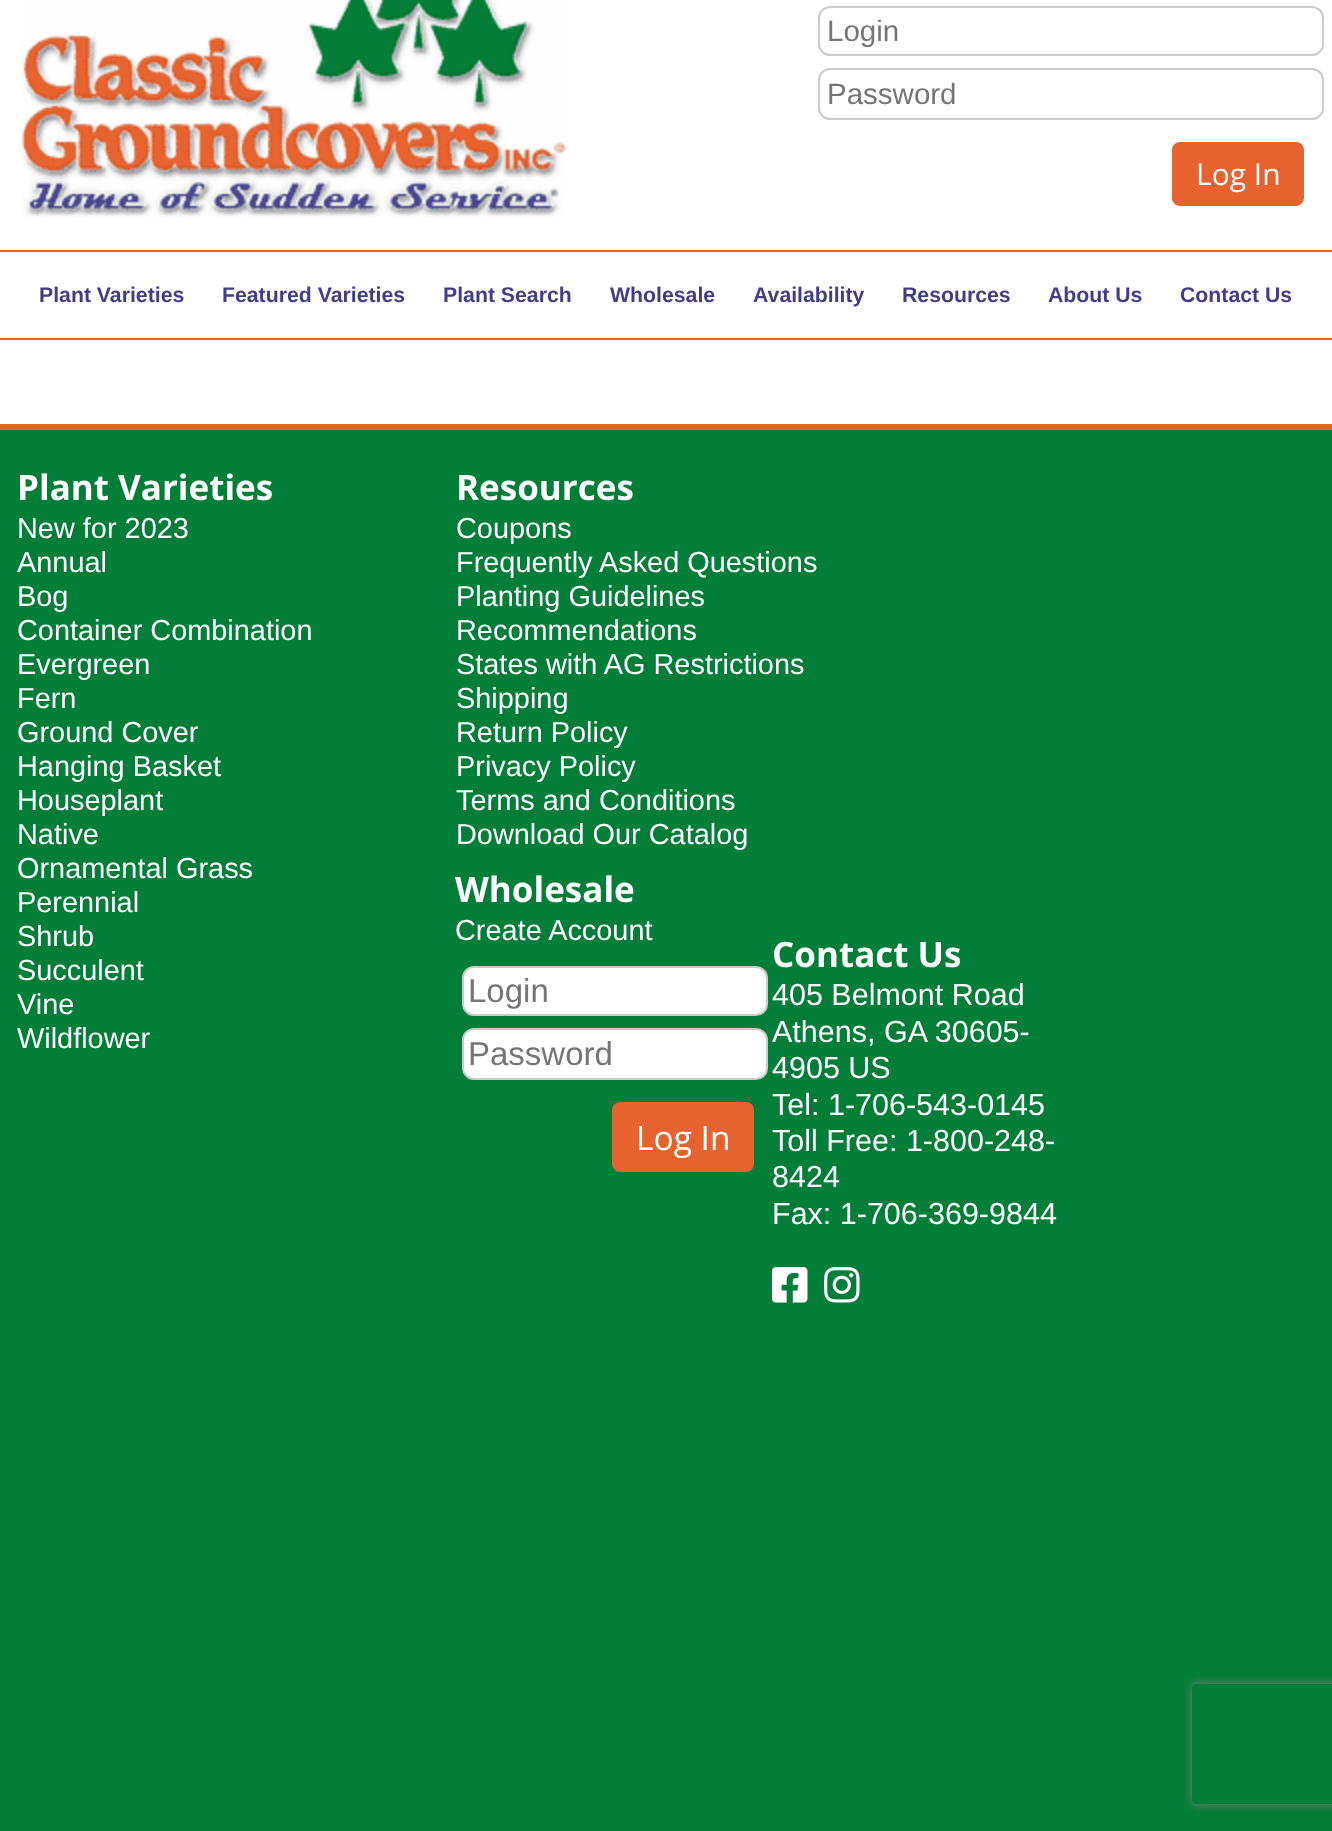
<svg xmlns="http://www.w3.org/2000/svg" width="1332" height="1831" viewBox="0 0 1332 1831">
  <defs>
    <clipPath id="clip1"><path d="M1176 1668H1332V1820H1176ZM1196 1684H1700C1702 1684 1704 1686 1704 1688V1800C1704 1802 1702 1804 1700 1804H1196C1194 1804 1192 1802 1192 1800V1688C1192 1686 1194 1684 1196 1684Z" clip-rule="evenodd"/></clipPath>
  </defs>
  <rect width="100%" height="100%" fill="#fff"/>
  <image x="21" y="0" width="546" height="218" href="img/1.png"/>
  <rect x="819" y="7" width="504" height="48" rx="11" fill="none" stroke="#cbcbcb" stroke-width="2"/>
  <rect x="819" y="69" width="504" height="50" rx="11" fill="none" stroke="#cbcbcb" stroke-width="2"/>
  <rect x="1172" y="142" width="132" height="64" rx="8" fill="#e6632f"/>
  <path d="M0 250h1332v2H0z" fill="#e6632f"/>
  <path d="M0 338h1332v2H0z" fill="#e6632f"/>
  <path d="M0 430h1332v1401H0z" fill="#037e38"/>
  <path d="M0 424h1332v6H0z" fill="#e6632f"/>
  <rect x="463" y="967" width="304" height="48" rx="11" fill="#fff" stroke="#cbcbcb" stroke-width="2"/>
  <rect x="463" y="1029" width="304" height="50" rx="11" fill="#fff" stroke="#cbcbcb" stroke-width="2"/>
  <rect x="612" y="1102" width="142" height="70" rx="8" fill="#e6632f"/>
  <image x="772" y="1267" width="36" height="36" href="img/2.png"/>
  <image x="824" y="1267" width="36" height="36" href="img/3.png"/>
  <g clip-path="url(#clip1)">
    <rect x="1192" y="1684" width="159" height="120" rx="4" fill="#808080" filter="blur(5px)"/>
  </g>
  <g font-family="Liberation Sans" font-size="29.5" fill="#757575">
    <text x="827" y="41">Login</text>
    <text x="827" y="104">Password</text>
  </g>
  <text x="1196" y="185" font-family="Open Sans" font-size="30" fill="#fff">Log In</text>
  <g font-family="Liberation Sans" font-size="21.25" font-weight="bold" fill="#413d8b">
    <text x="39" y="302">Plant Varieties</text>
    <text x="222" y="302">Featured Varieties</text>
    <text x="443" y="302">Plant Search</text>
    <text x="610" y="302">Wholesale</text>
    <text x="753" y="302">Availability</text>
    <text x="902" y="302">Resources</text>
    <text x="1048" y="302">About Us</text>
    <text x="1180" y="302">Contact Us</text>
  </g>
  <text x="17" y="500" font-family="Open Sans" font-size="35" font-weight="bold" fill="#fff">Plant Varieties</text>
  <g font-family="Liberation Sans" font-size="28.9" fill="#fff">
    <text x="17" y="538">New for 2023</text>
    <text x="17" y="572">Annual</text>
    <text x="17" y="606">Bog</text>
    <text x="17" y="640">Container Combination</text>
    <text x="17" y="674">Evergreen</text>
    <text x="17" y="708">Fern</text>
    <text x="17" y="742">Ground Cover</text>
    <text x="17" y="776">Hanging Basket</text>
    <text x="17" y="810">Houseplant</text>
    <text x="17" y="844">Native</text>
    <text x="17" y="878">Ornamental Grass</text>
    <text x="17" y="912">Perennial</text>
    <text x="17" y="946">Shrub</text>
    <text x="17" y="980">Succulent</text>
    <text x="17" y="1014">Vine</text>
    <text x="17" y="1048">Wildflower</text>
  </g>
  <text x="456" y="500" font-family="Open Sans" font-size="35" font-weight="bold" fill="#fff">Resources</text>
  <g font-family="Liberation Sans" font-size="28.9" fill="#fff">
    <text x="456" y="538">Coupons</text>
    <text x="456" y="572">Frequently Asked Questions</text>
    <text x="456" y="606">Planting Guidelines</text>
    <text x="456" y="640">Recommendations</text>
    <text x="456" y="674">States with AG Restrictions</text>
    <text x="456" y="708">Shipping</text>
    <text x="456" y="742">Return Policy</text>
    <text x="456" y="776">Privacy Policy</text>
    <text x="456" y="810">Terms and Conditions</text>
    <text x="456" y="844">Download Our Catalog</text>
  </g>
  <text x="455" y="902" font-family="Open Sans" font-size="35" font-weight="bold" fill="#fff">Wholesale</text>
  <text x="455" y="940" font-family="Liberation Sans" font-size="28.9" fill="#fff">Create Account</text>
  <g font-family="Liberation Sans" font-size="33" fill="#757575">
    <text x="468" y="1002">Login</text>
    <text x="468" y="1065">Password</text>
  </g>
  <text x="636" y="1150" font-family="Open Sans" font-size="33.5" fill="#fff">Log In</text>
  <text x="772" y="967" font-family="Open Sans" font-size="35" font-weight="bold" fill="#fff">Contact Us</text>
  <g font-family="Liberation Sans" font-size="30.5" fill="#fff">
    <text x="772" y="1005">405 Belmont Road</text>
    <text x="772" y="1042">Athens, GA 30605-</text>
    <text x="772" y="1078">4905 US</text>
    <text x="772" y="1115">Tel: 1-706-543-0145</text>
    <text x="772" y="1151">Toll Free: 1-800-248-</text>
    <text x="772" y="1187">8424</text>
    <text x="772" y="1224">Fax: 1-706-369-9844</text>
  </g>
</svg>
